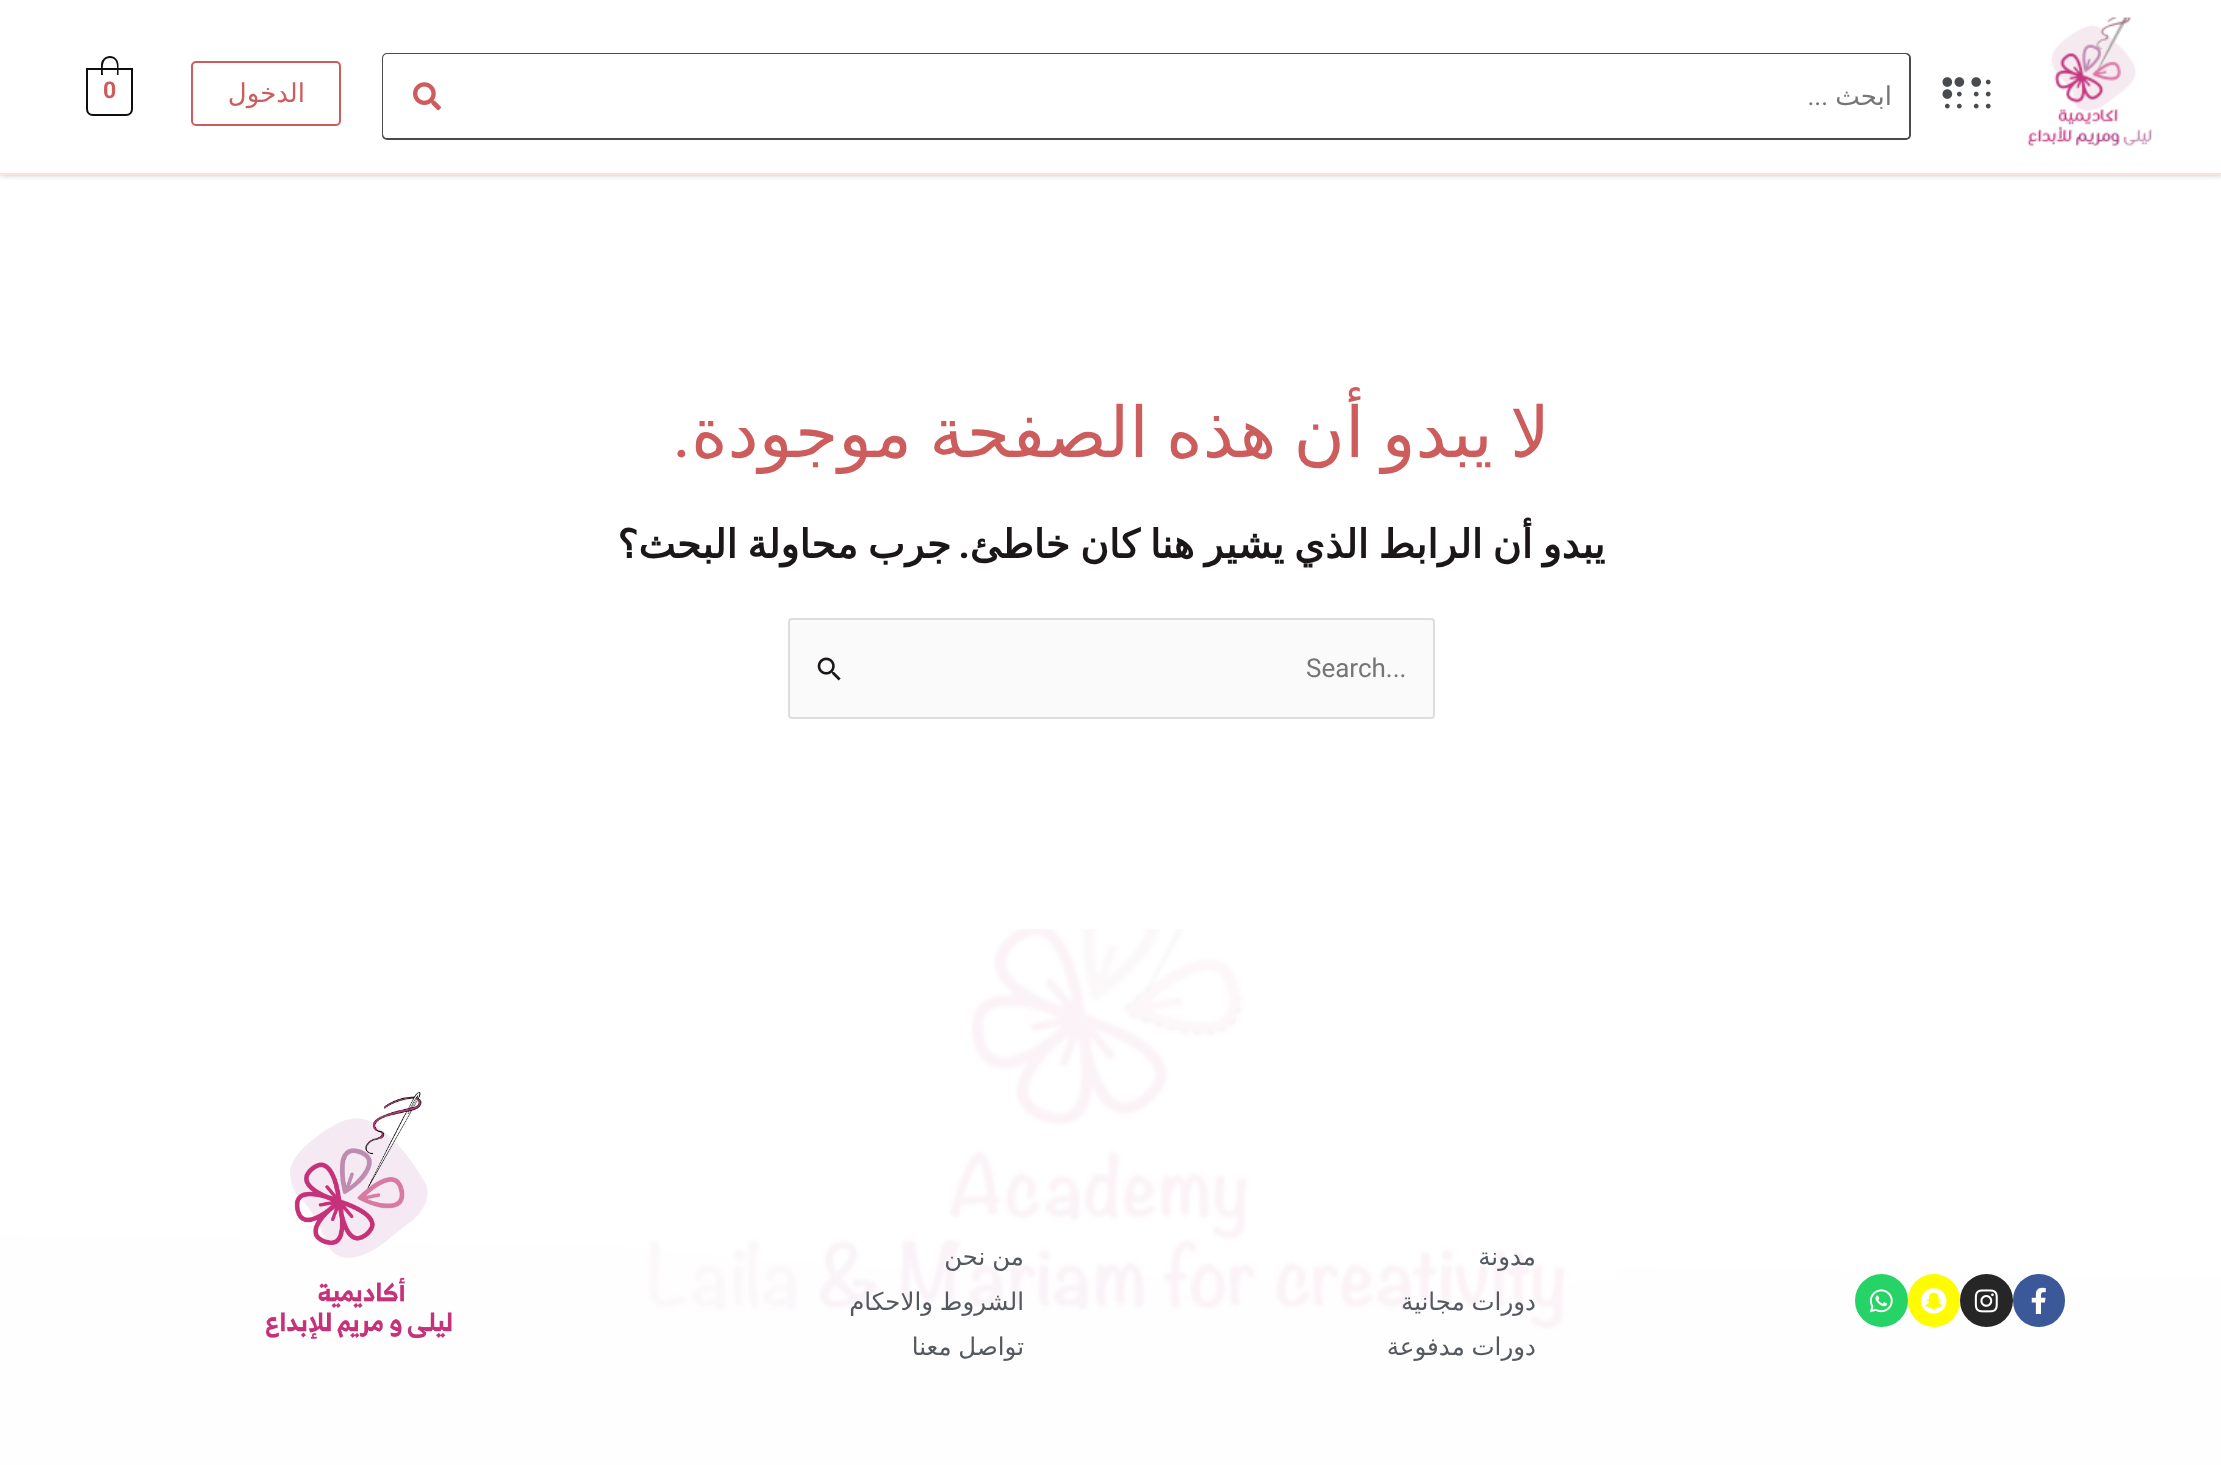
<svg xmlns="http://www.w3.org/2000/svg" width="2221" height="1465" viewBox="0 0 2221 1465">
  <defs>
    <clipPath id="clip1"><path d="M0 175h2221v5H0z"/></clipPath>
  </defs>
  <rect width="100%" height="100%" fill="#fff"/>
  <g clip-path="url(#clip1)">
    <path d="M0 -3h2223v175H0z" fill="#00000080" filter="blur(4.5px)"/>
  </g>
  <path d="M0 173h2221v2H0z" fill="#fde0e0"/>
  <image x="2027" y="17" width="126" height="129" href="img/1.png"/>
  <image x="1942" y="77" width="49" height="32" href="img/2.png"/>
  <rect x="383" y="54" width="1527" height="85" rx="4" fill="none" stroke="#494c4f" stroke-width="2"/>
  <path d="M471 54H1905C1907 54 1909 56 1909 58V134C1909 136 1907 138 1905 138H471Z" fill="#fff"/>
  <path d="M387 54H471V138H387C385 138 383 136 383 134V58C383 56 385 54 387 54Z" fill="#fff"/>
  <image x="413" y="82" width="28" height="29" href="img/3.png"/>
  <rect x="192" y="62" width="148" height="63" rx="4" fill="none" stroke="#cd5c5c" stroke-width="2"/>
  <path d="M87 69H132V109C132 112.5 129.5 115 126 115H93C89.5 115 87 112.5 87 109Z" fill="none" stroke="#0f0e0f" stroke-width="2"/>
  <path d="M110 56C115 56 118.5 60 118.5 65V75H101V65C101 60 105 56 110 56ZM110 58C119 58 117 69.5 117 75H103C103 69.5 101 58 110 58Z" fill="#0f0e0f" fill-rule="evenodd"/>
  <rect x="789" y="619" width="645" height="99" rx="3" fill="#fafafa" stroke="#ddd" stroke-width="2"/>
  <image x="817" y="657" width="24" height="24" href="img/4.png"/>
  <image x="0" y="929" width="2221" height="536" href="img/5.png"/>
  <rect x="2013" y="1274" width="52" height="53" rx="26" fill="#3b5998"/>
  <image x="2031" y="1287" width="15" height="27" href="img/6.png"/>
  <circle cx="1986.5" cy="1300.5" r="26.5" fill="#262626"/>
  <image x="1974" y="1289" width="24" height="24" href="img/7.png"/>
  <rect x="1908" y="1274" width="52" height="53" rx="26" fill="#fffc00"/>
  <image x="1921" y="1288" width="26" height="26" href="img/8.png"/>
  <circle cx="1881.5" cy="1300.5" r="26.5" fill="#25d366"/>
  <image x="1869" y="1289" width="24" height="24" href="img/9.png"/>
  <image x="266" y="1092" width="186" height="247" href="img/10.png"/>
  <text x="1892" y="105" font-family="DejaVu Sans" font-size="26" direction="rtl" fill="#757575">ابحث</text>
  <text x="1828" y="105" font-family="Roboto" font-size="26" direction="rtl" fill="#757575">...</text>
  <text x="305" y="102" font-family="DejaVu Sans" font-size="26" direction="rtl" fill="#cd5c5c">الدخول</text>
  <text x="103" y="98" font-family="Roboto" font-size="23" font-weight="bold" fill="#cd5c5c">0</text>
  <text x="1550" y="457" word-spacing="-5" font-family="DejaVu Sans" font-size="70" direction="rtl" fill="#cd5c5c">لا يبدو أن هذه الصفحة موجودة</text>
  <text x="691" y="457" font-family="Roboto" font-size="70" direction="rtl" fill="#cd5c5c">.</text>
  <text x="1605" y="558" word-spacing="-2.5" font-family="DejaVu Sans" font-size="39.4" font-weight="bold" direction="rtl" fill="#1b1719">يبدو أن الرابط الذي يشير هنا كان خاطئ</text>
  <text x="970" y="558" font-family="Roboto" font-size="39.4" font-weight="bold" direction="rtl" fill="#1b1719">.</text>
  <text x="951" y="558" word-spacing="-2.5" font-family="DejaVu Sans" font-size="39.4" font-weight="bold" direction="rtl" fill="#1b1719">جرب محاولة البحث؟</text>
  <text x="1306" y="677" font-family="Roboto" font-size="26" fill="#757575">Search...</text>
  <g font-family="DejaVu Sans" font-size="24.5" direction="rtl" fill="#54595f">
    <text x="1536" y="1265">مدونة</text>
    <text x="1536" y="1310" word-spacing="-1">دورات مجانية</text>
    <text x="1536" y="1355" word-spacing="-1">دورات مدفوعة</text>
    <text x="1024" y="1265" word-spacing="-1">من نحن</text>
    <text x="1024" y="1310" word-spacing="-1">الشروط والاحكام</text>
    <text x="1024" y="1355" word-spacing="-1">تواصل معنا</text>
  </g>
</svg>
